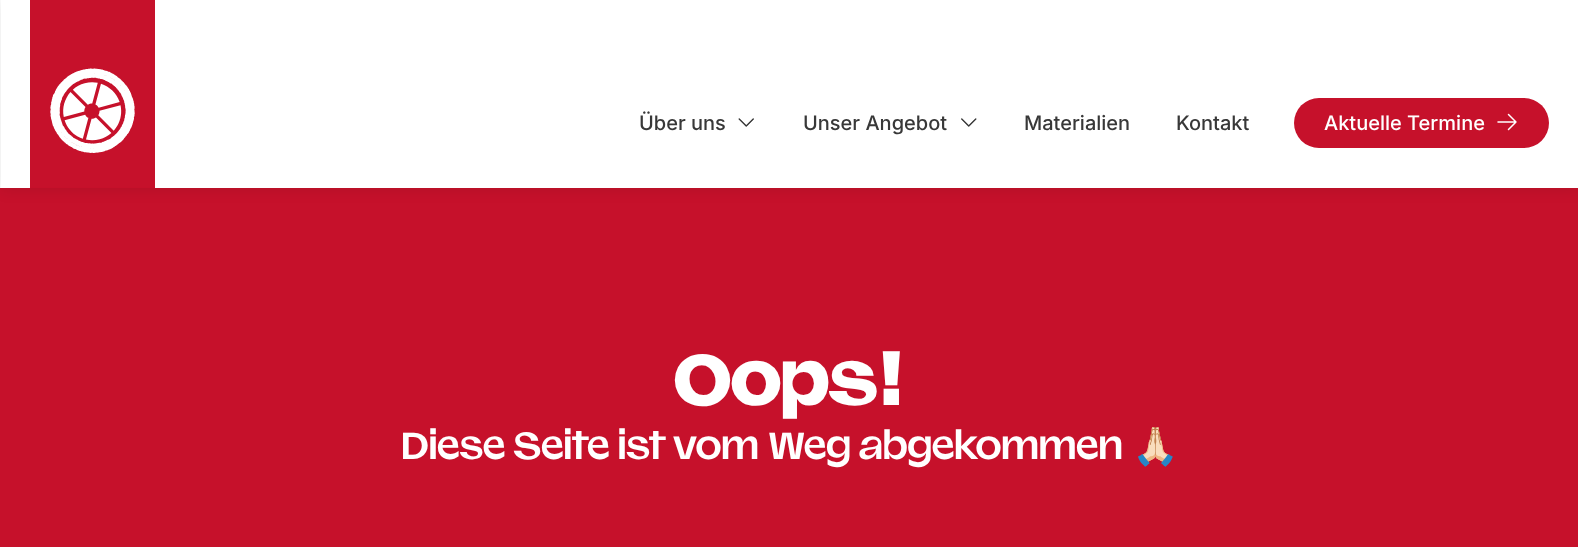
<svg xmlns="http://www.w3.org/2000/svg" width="1578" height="547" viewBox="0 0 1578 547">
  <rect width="100%" height="100%" fill="#fff"/>
  <path d="M0 188h1578v359H0z" fill="#c6112b"/>
  <path d="M1 1h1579v188H1z" fill="#0000001a" filter="blur(7.5px)"/>
  <path d="M1 0h1577v188H1z" fill="#fff"/>
  <image x="30" y="0" width="125" height="188" href="img/1.png"/>
  <image x="738" y="118" width="16" height="9" href="img/2.png"/>
  <image x="961" y="118" width="16" height="9" href="img/3.png"/>
  <rect x="1294" y="98" width="255" height="50" rx="25" fill="#c6112b"/>
  <image x="1497" y="113" width="20" height="18" href="img/4.png"/>
  <g font-family="Inter" font-size="20" font-weight="500" fill="#383838">
    <text x="639" y="130">Über uns</text>
    <text x="803" y="130">Unser Angebot</text>
    <text x="1024" y="130">Materialien</text>
    <text x="1176" y="130">Kontakt</text>
  </g>
  <text x="1324" y="130" font-family="Inter" font-size="20" font-weight="500" fill="#fff">Aktuelle Termine</text>
  <text x="673" y="405" font-family="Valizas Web" font-size="71" font-weight="bold" letter-spacing="-1.5" fill="#fff">Oops!</text>
  <text x="401" y="459" font-family="Valizas Web" font-size="37.5" font-weight="600" letter-spacing="-0.55" fill="#fff">Diese Seite ist vom Weg abgekommen</text>
  <text x="1132" y="459" font-family="Noto Color Emoji" font-size="37.5" font-weight="bold" letter-spacing="-0.55" fill="#fff">🙏🏻</text>
</svg>
